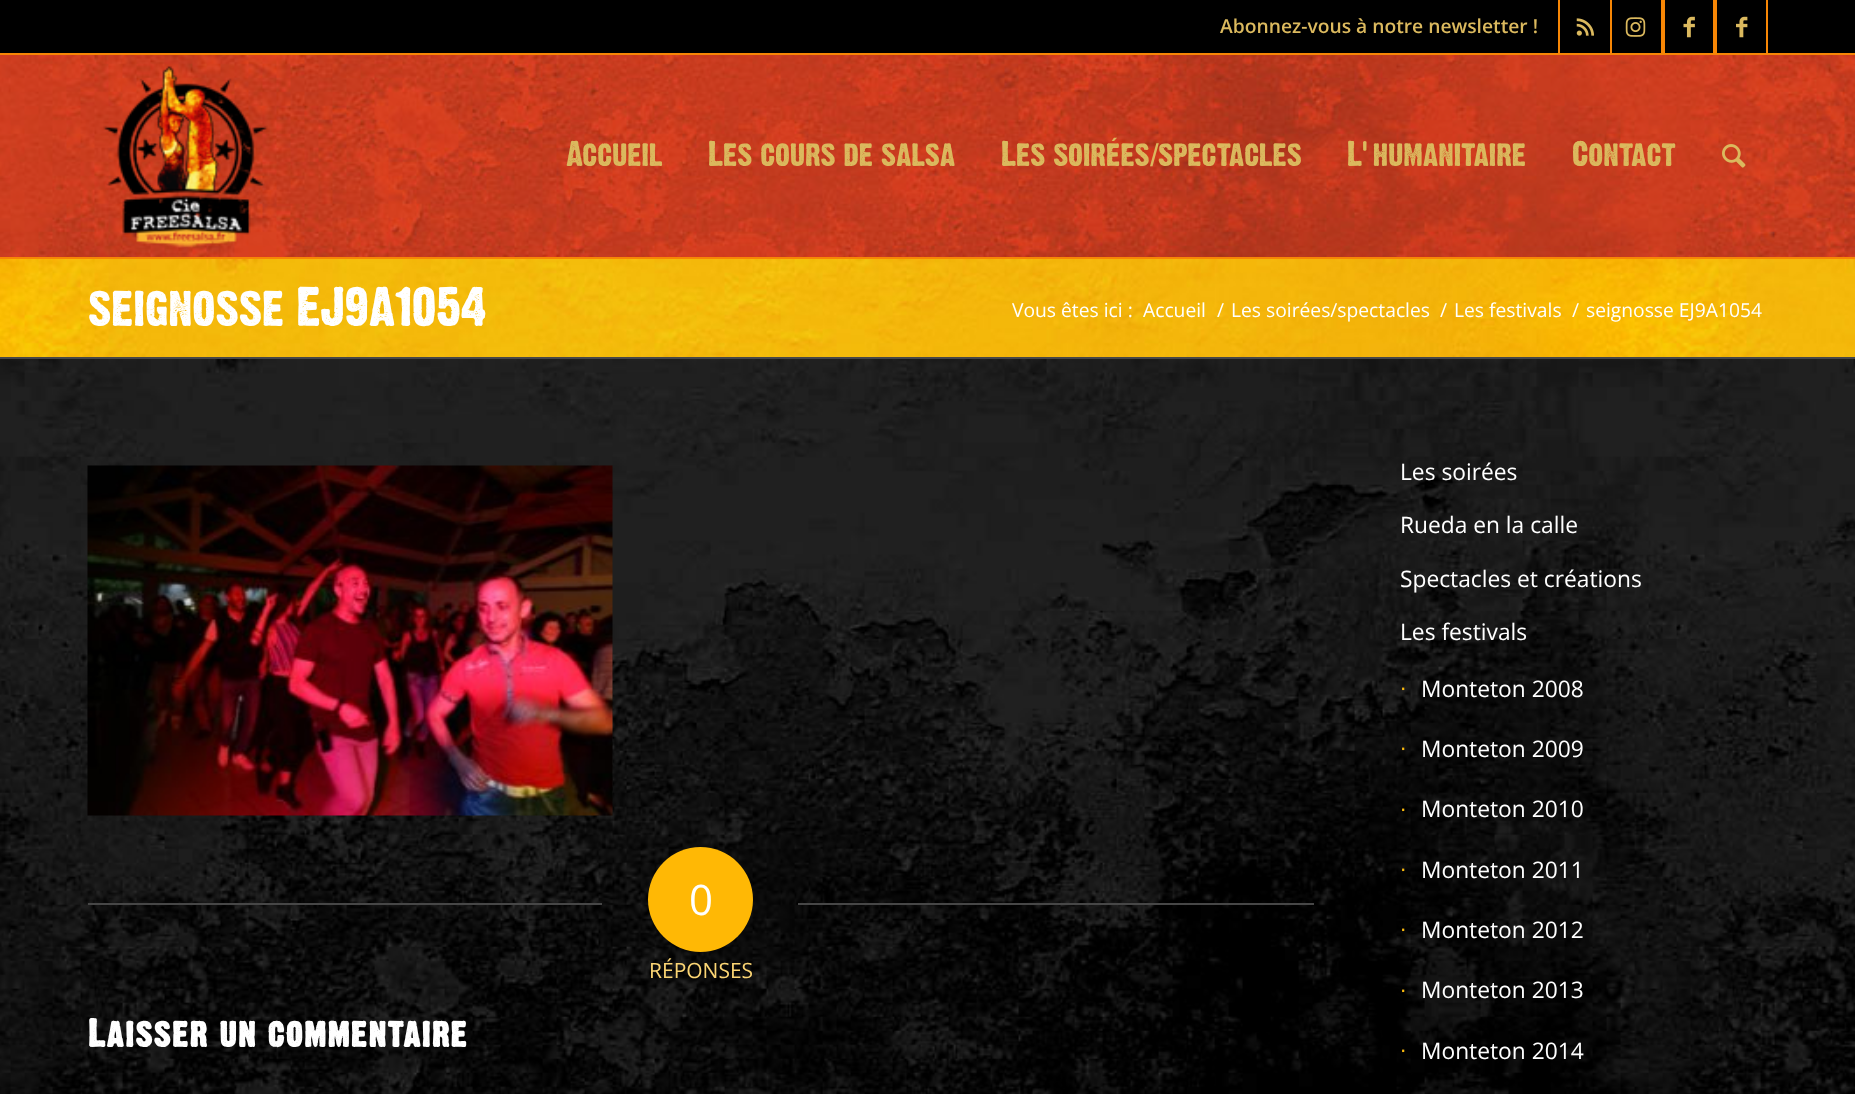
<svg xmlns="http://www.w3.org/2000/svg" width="1855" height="1094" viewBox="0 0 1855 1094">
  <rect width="100%" height="100%" fill="#fff"/>
  <path d="M0 0h1855v53H0z" fill="#000"/>
  <path d="M0 53h1855v2H0z" fill="#f78605"/>
  <path d="M1558 0h2v53H1558z" fill="#f78605"/>
  <image x="1576" y="18" width="18" height="18" href="img/1.png"/>
  <path d="M1610 0h2v53H1610z" fill="#f78605"/>
  <image x="1625" y="17" width="21" height="20" href="img/2.png"/>
  <path d="M1661 0h4v53H1661z" fill="#f78605"/>
  <image x="1683" y="16" width="12" height="22" href="img/3.png"/>
  <path d="M1766 0h2v53H1766z" fill="#f78605"/>
  <path d="M1713 0h4v53H1713z" fill="#f78605"/>
  <image x="1736" y="16" width="12" height="22" href="img/4.png"/>
  <image x="0" y="55" width="1855" height="202" href="img/5.png"/>
  <path d="M0 257h1855v2H0z" fill="#f78605"/>
  <image x="103" y="66" width="165" height="182" href="img/6.png"/>
  <image x="1722" y="144" width="24" height="24" href="img/7.png"/>
  <image x="0" y="259" width="1855" height="98" href="img/8.png"/>
  <image x="0" y="359" width="1855" height="735" href="img/9.png"/>
  <path d="M0 357h1855v2H0z" fill="#474747"/>
  <image x="87" y="465" width="526" height="351" href="img/10.png"/>
  <path d="M88 903h514v2H88z" fill="#474747"/>
  <circle cx="700.5" cy="899.5" r="52.5" fill="#ffb805"/>
  <path d="M798 903h516v2H798z" fill="#474747"/>
  <text x="1220" y="33" font-family="Open Sans" font-size="19.25" font-weight="600" fill="#dbb95e">Abonnez-vous à notre newsletter !</text>
  <g font-family="'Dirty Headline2'" font-size="31.5" fill="#dbb95e">
    <text x="566" y="166">Accueil</text>
    <text x="708" y="166">Les cours de salsa</text>
    <text x="1001" y="166">Les soirées</text>
  </g>
  <text x="1150" y="166" font-family="Liberation Sans" font-size="31.5" fill="#dbb95e">/</text>
  <g font-family="'Dirty Headline2'" font-size="31.5" fill="#dbb95e">
    <text x="1158" y="166">spectacles</text>
    <text x="1347" y="166">L’humanitaire</text>
    <text x="1572" y="166">Contact</text>
  </g>
  <text x="88" y="326" font-family="'Dirty Headline2'" font-size="49" fill="#fff">seignosse EJ9A1054</text>
  <g font-family="Open Sans" font-size="19.25" fill="#fff">
    <text x="1012" y="317">Vous êtes ici :</text>
    <text x="1143" y="317">Accueil</text>
    <text x="1217" y="317">/</text>
    <text x="1231" y="317">Les soirées/spectacles</text>
    <text x="1440" y="317">/</text>
    <text x="1454" y="317">Les festivals</text>
    <text x="1572" y="317">/</text>
    <text x="1586" y="317">seignosse EJ9A1054</text>
  </g>
  <text x="689" y="915" font-family="Open Sans" font-size="42" fill="#fff">0</text>
  <text x="649" y="978" font-family="Open Sans" font-size="21" fill="#fbd574">RÉPONSES</text>
  <text x="88" y="1047" font-family="'Dirty Headline2'" font-size="35" font-weight="bold" letter-spacing="1.75" fill="#fff">Laisser un commentaire</text>
  <g font-family="Open Sans" font-size="22.75" fill="#fff">
    <text x="1400" y="480">Les soirées</text>
    <text x="1400" y="533">Rueda en la calle</text>
    <text x="1400" y="587">Spectacles et créations</text>
    <text x="1400" y="640">Les festivals</text>
  </g>
  <text x="1400" y="695" font-family="Liberation Sans" font-size="22.75" fill="#f8b810">∙</text>
  <text x="1421" y="697" font-family="Open Sans" font-size="22.75" fill="#fff">Monteton 2008</text>
  <text x="1400" y="755" font-family="Liberation Sans" font-size="22.75" fill="#f8b810">∙</text>
  <text x="1421" y="757" font-family="Open Sans" font-size="22.75" fill="#fff">Monteton 2009</text>
  <text x="1400" y="816" font-family="Liberation Sans" font-size="22.75" fill="#f8b810">∙</text>
  <text x="1421" y="817" font-family="Open Sans" font-size="22.75" fill="#fff">Monteton 2010</text>
  <text x="1400" y="876" font-family="Liberation Sans" font-size="22.75" fill="#f8b810">∙</text>
  <text x="1421" y="878" font-family="Open Sans" font-size="22.75" fill="#fff">Monteton 2011</text>
  <text x="1400" y="936" font-family="Liberation Sans" font-size="22.75" fill="#f8b810">∙</text>
  <text x="1421" y="938" font-family="Open Sans" font-size="22.75" fill="#fff">Monteton 2012</text>
  <text x="1400" y="997" font-family="Liberation Sans" font-size="22.75" fill="#f8b810">∙</text>
  <text x="1421" y="998" font-family="Open Sans" font-size="22.75" fill="#fff">Monteton 2013</text>
  <text x="1400" y="1057" font-family="Liberation Sans" font-size="22.75" fill="#f8b810">∙</text>
  <text x="1421" y="1059" font-family="Open Sans" font-size="22.75" fill="#fff">Monteton 2014</text>
</svg>
